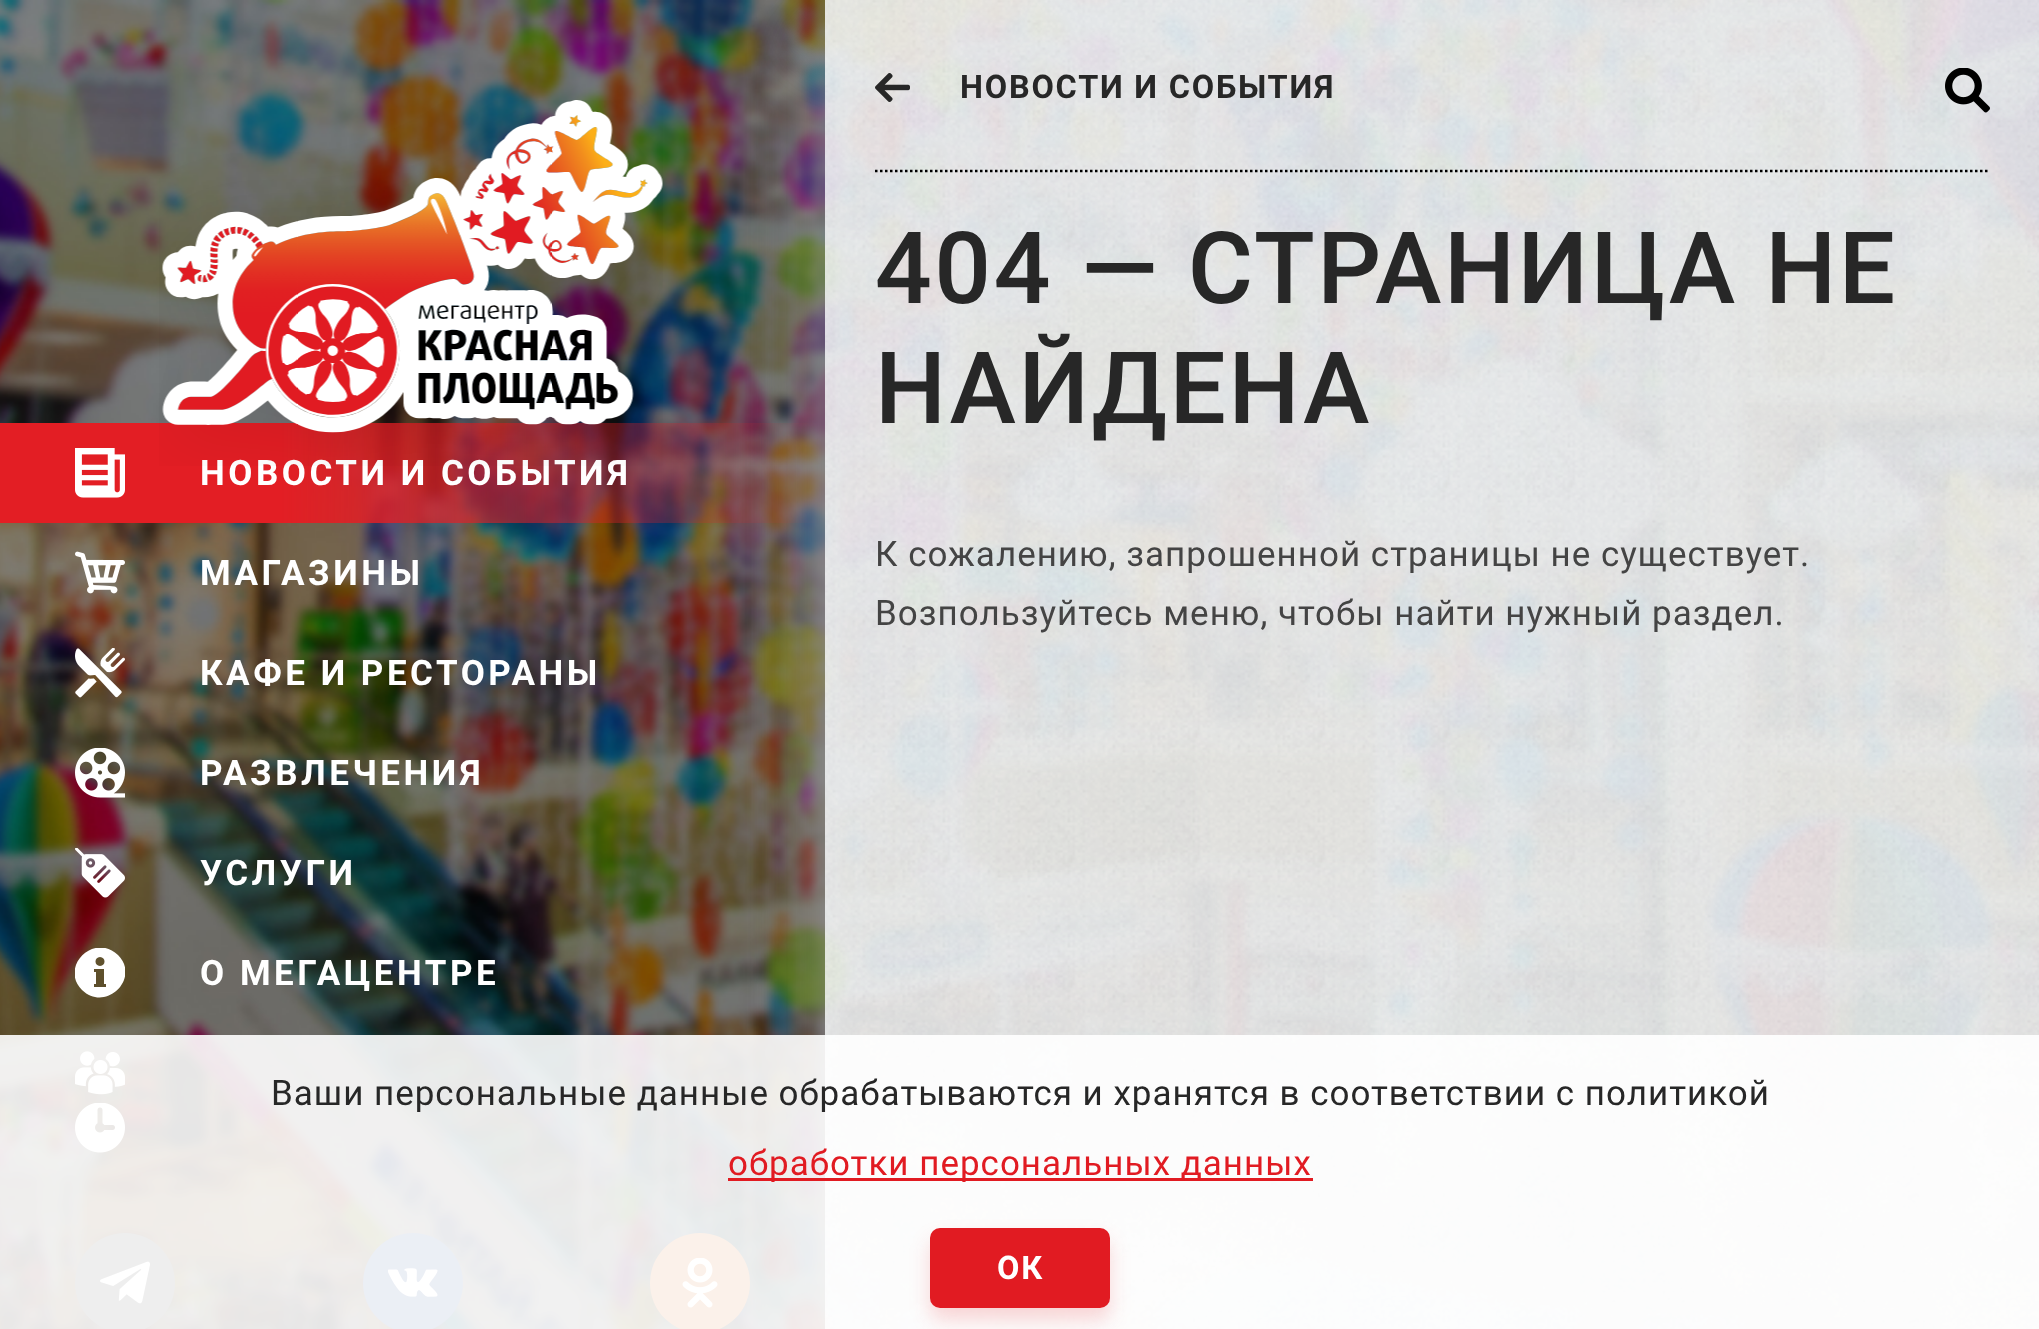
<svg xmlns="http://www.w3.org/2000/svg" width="2039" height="1329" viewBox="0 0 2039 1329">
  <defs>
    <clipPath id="clip1"><path d="M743 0h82v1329H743z"/></clipPath>
    <clipPath id="clip2"><path d="M75 948h50v50H75z"/></clipPath>
  </defs>
  <rect width="100%" height="100%" fill="#fff"/>
  <image x="0" y="0" width="2039" height="1329" href="img/4.png"/>
  <circle cx="700" cy="1283" r="50" fill="#d87229"/>
  <image x="682" y="1258" width="36" height="50" href="img/15.png"/>
  <g clip-path="url(#clip1)">
    <path d="M825 40h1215v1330H825z" fill="#999" filter="blur(40px)"/>
  </g>
  <image x="825" y="0" width="1214" height="1329" href="img/1.png"/>
  <path d="M875 171H1990" fill="none" stroke="#000" stroke-width="2.5" stroke-dasharray="2.5 2.5"/>
  <image x="875" y="73" width="35" height="29" href="img/2.png"/>
  <image x="1945" y="68" width="45" height="45" href="img/3.png"/>
  <image x="75" y="448" width="50" height="50" href="img/6.png"/>
  <image x="75" y="551" width="50" height="43" href="img/7.png"/>
  <image x="75" y="648" width="50" height="50" href="img/8.png"/>
  <image x="75" y="748" width="50" height="50" href="img/9.png"/>
  <image x="75" y="848" width="50" height="50" href="img/10.png"/>
  <g clip-path="url(#clip2)">
    <path d="M118 955C94 932 59 967 82 990C106 1013 141 978 118 955ZM100 957C106 957 106 966 100 966C94 966 94 957 100 957ZM106 987H94V984H96V972H94V969H104V984H106Z" fill="#fff"/>
  </g>
  <image x="75" y="1051" width="50" height="44" href="img/11.png"/>
  <image x="75" y="1103" width="50" height="50" href="img/12.png"/>
  <circle cx="125" cy="1283" r="50" fill="#555"/>
  <image x="100" y="1261" width="50" height="43" href="img/13.png"/>
  <circle cx="413" cy="1283" r="50" fill="#3b5999"/>
  <image x="388" y="1268" width="50" height="29" href="img/14.png"/>
  <path d="M0 1035h2039v294H0z" fill="#ffffffe6"/>
  <path d="M728 1178h585v3H728z" fill="#e11b22"/>
  <rect x="930" y="1240" width="180" height="80" rx="10" fill="#e11b222e" filter="blur(10px)"/>
  <rect x="930" y="1228" width="180" height="80" rx="10" fill="#e11b22"/>
  <text x="960" y="98" font-family="Roboto" font-size="32.5" font-weight="bold" letter-spacing="1.75" fill="#272727">НОВОСТИ И СОБЫТИЯ</text>
  <g font-family="Roboto" font-size="100" font-weight="500" letter-spacing="2.5" fill="#272727">
    <text x="875" y="303">404 — СТРАНИЦА НЕ</text>
    <text x="875" y="423">НАЙДЕНА</text>
  </g>
  <g font-family="Roboto" font-size="35" letter-spacing="1" fill="#444">
    <text x="875" y="566">К сожалению, запрошенной страницы не существует.</text>
    <text x="875" y="625">Возпользуйтесь меню, чтобы найти нужный раздел.</text>
  </g>
  <text x="200" y="485" font-family="Roboto" font-size="35" font-weight="bold" letter-spacing="3.5" fill="#fff">НОВОСТИ И СОБЫТИЯ</text>
  <image x="159" y="100" width="504" height="366" href="img/5.png"/>
  <g font-family="Roboto" font-size="35" font-weight="bold" letter-spacing="3.5" fill="#fff">
    <text x="200" y="585">МАГАЗИНЫ</text>
    <text x="200" y="685">КАФЕ И РЕСТОРАНЫ</text>
    <text x="200" y="785">РАЗВЛЕЧЕНИЯ</text>
    <text x="200" y="885">УСЛУГИ</text>
    <text x="200" y="985">О МЕГАЦЕНТРЕ</text>
  </g>
  <text x="271" y="1105" font-family="Roboto" font-size="35" letter-spacing="1" fill="#272727">Ваши персональные данные обрабатываются и хранятся в соответствии с политикой</text>
  <text x="728" y="1175" font-family="Roboto" font-size="35" letter-spacing="1" fill="#e11b22">обработки персональных данных</text>
  <text x="997" y="1279" font-family="Roboto" font-size="32.5" font-weight="bold" letter-spacing="1.75" fill="#fff">ОК</text>
</svg>
